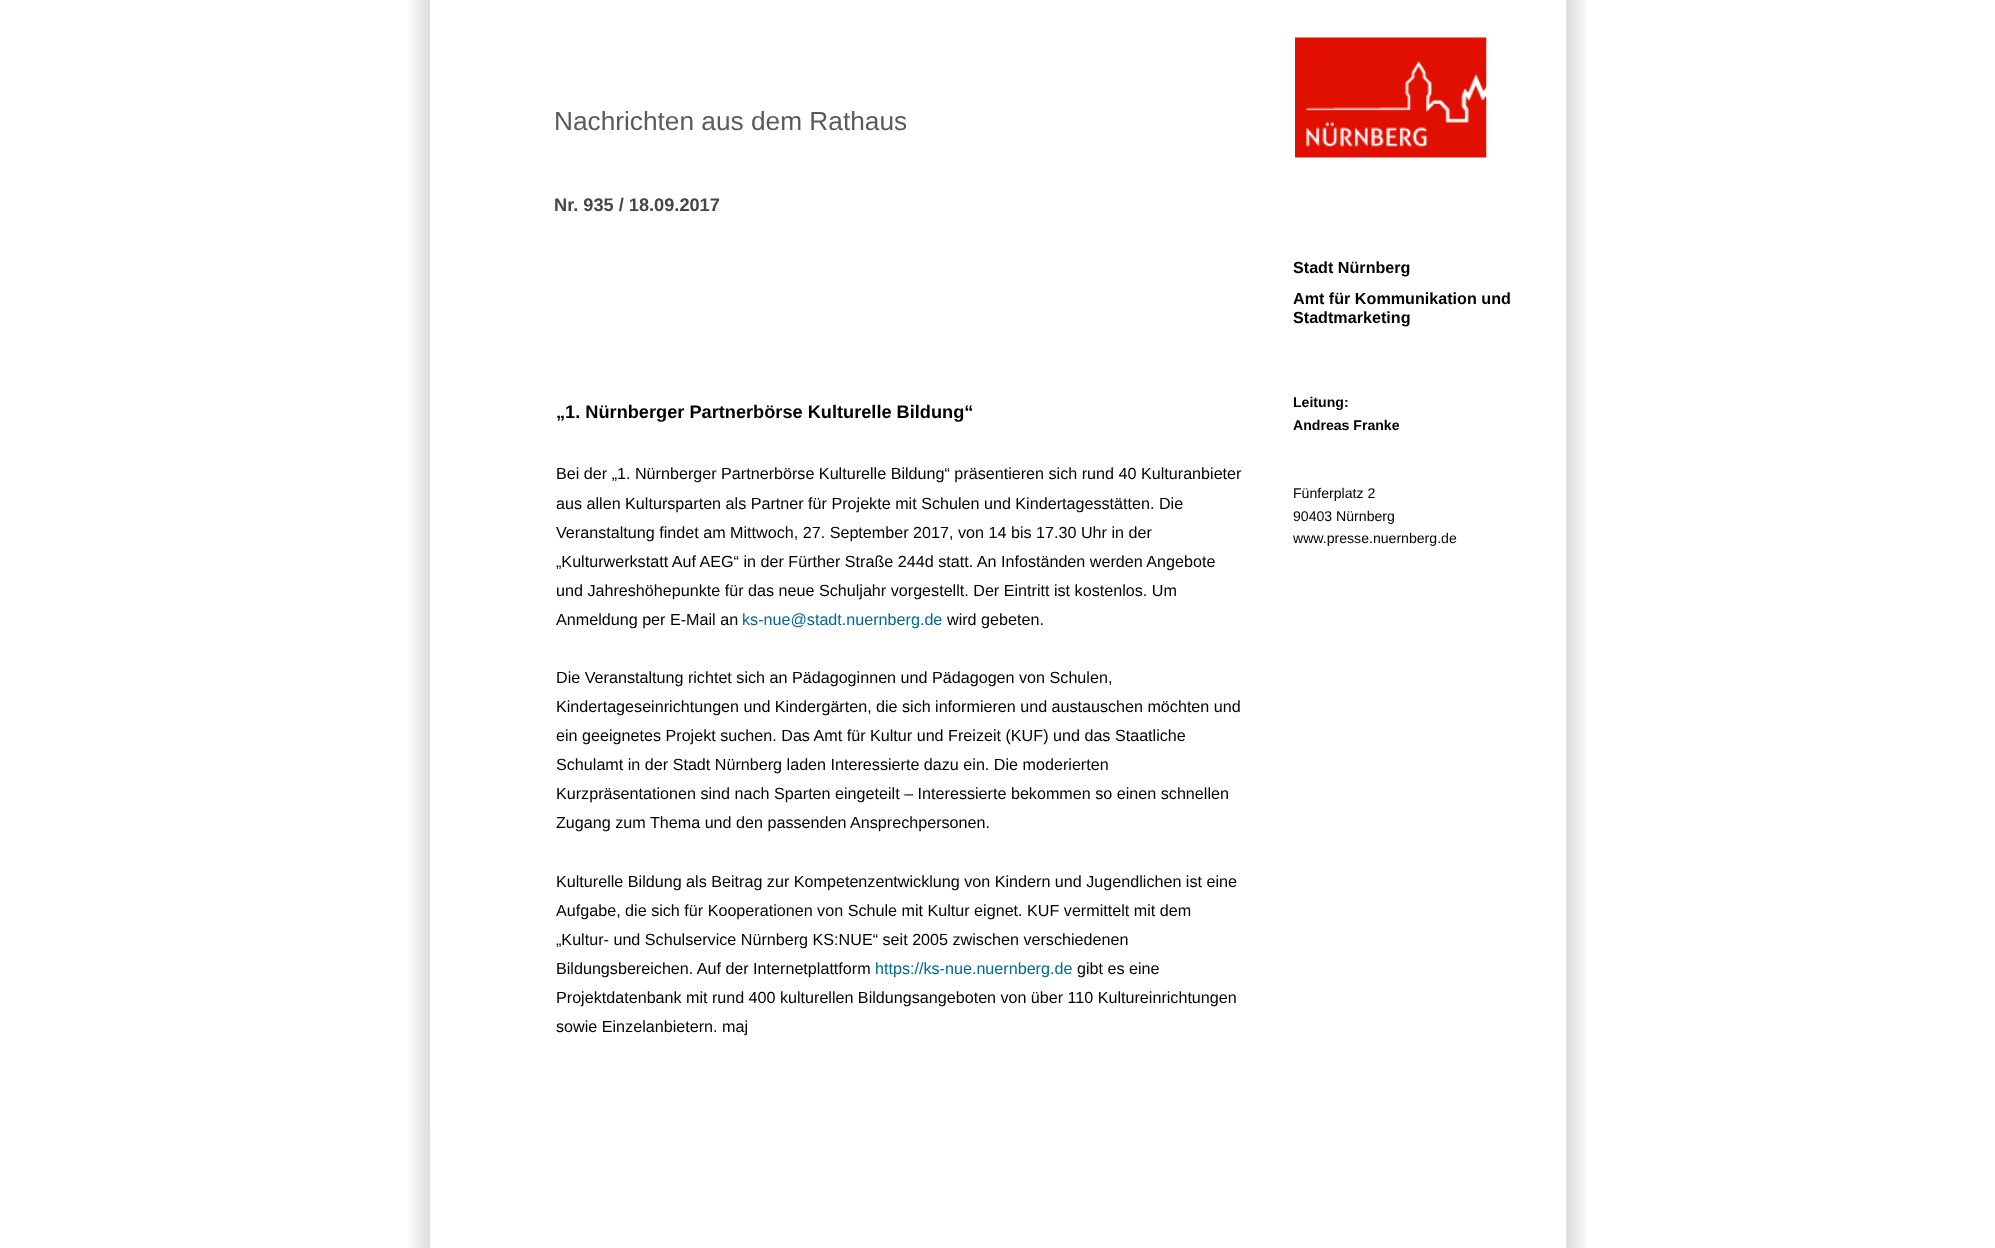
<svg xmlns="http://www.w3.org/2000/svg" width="1995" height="1248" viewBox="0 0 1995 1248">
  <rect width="100%" height="100%" fill="#fff"/>
  <image x="409" y="0" width="1178" height="1248" href="img/1.png"/>
  <path d="M430.5 0.5h1135v1129H430.5z" fill="none" stroke="#fff"/>
  <image x="1295" y="37" width="192" height="121" href="img/2.png"/>
  <text x="554" y="130" font-family="Liberation Sans" font-size="26.25" fill="#5a5a5a">Nachrichten aus dem Rathaus</text>
  <text x="554" y="211" font-family="Liberation Sans" font-size="18.2" font-weight="bold" fill="#464646">Nr. 935 / 18.09.2017</text>
  <text x="556" y="418" font-family="Liberation Sans" font-size="18.2" font-weight="bold" fill="#000">„1. Nürnberger Partnerbörse Kulturelle Bildung“</text>
  <g font-family="Liberation Sans" font-size="16.15" fill="#000">
    <text x="556" y="479">Bei der „1. Nürnberger Partnerbörse Kulturelle Bildung“ präsentieren sich rund 40 Kulturanbieter</text>
    <text x="556" y="509">aus allen Kultursparten als Partner für Projekte mit Schulen und Kindertagesstätten. Die</text>
    <text x="556" y="538">Veranstaltung findet am Mittwoch, 27. September 2017, von 14 bis 17.30 Uhr in der</text>
    <text x="556" y="567">„Kulturwerkstatt Auf AEG“ in der Fürther Straße 244d statt. An Infoständen werden Angebote</text>
    <text x="556" y="596">und Jahreshöhepunkte für das neue Schuljahr vorgestellt. Der Eintritt ist kostenlos. Um</text>
    <text x="556" y="625">Anmeldung per E-Mail an</text>
  </g>
  <text x="742" y="625" font-family="Liberation Sans" font-size="16.15" fill="#016891">ks-nue@stadt.nuernberg.de</text>
  <g font-family="Liberation Sans" font-size="16.15" fill="#000">
    <text x="947" y="625">wird gebeten.</text>
    <text x="556" y="683">Die Veranstaltung richtet sich an Pädagoginnen und Pädagogen von Schulen,</text>
    <text x="556" y="712" word-spacing="-0.1">Kindertageseinrichtungen und Kindergärten, die sich informieren und austauschen möchten und</text>
    <text x="556" y="741">ein geeignetes Projekt suchen. Das Amt für Kultur und Freizeit (KUF) und das Staatliche</text>
    <text x="556" y="770">Schulamt in der Stadt Nürnberg laden Interessierte dazu ein. Die moderierten</text>
    <text x="556" y="799">Kurzpräsentationen sind nach Sparten eingeteilt – Interessierte bekommen so einen schnellen</text>
    <text x="556" y="828">Zugang zum Thema und den passenden Ansprechpersonen.</text>
    <text x="556" y="887">Kulturelle Bildung als Beitrag zur Kompetenzentwicklung von Kindern und Jugendlichen ist eine</text>
    <text x="556" y="916">Aufgabe, die sich für Kooperationen von Schule mit Kultur eignet. KUF vermittelt mit dem</text>
    <text x="556" y="945">„Kultur- und Schulservice Nürnberg KS:NUE“ seit 2005 zwischen verschiedenen</text>
    <text x="556" y="974" word-spacing="-0.1">Bildungsbereichen. Auf der Internetplattform</text>
  </g>
  <text x="875" y="974" font-family="Liberation Sans" font-size="16.15" fill="#016891">https://ks-nue.nuernberg.de</text>
  <g font-family="Liberation Sans" font-size="16.15" fill="#000">
    <text x="1077" y="974">gibt es eine</text>
    <text x="556" y="1003" word-spacing="-0.1">Projektdatenbank mit rund 400 kulturellen Bildungsangeboten von über 110 Kultureinrichtungen</text>
    <text x="556" y="1032">sowie Einzelanbietern. maj</text>
  </g>
  <g font-family="Liberation Sans" font-size="16.15" font-weight="bold" fill="#000">
    <text x="1293" y="273">Stadt Nürnberg</text>
    <text x="1293" y="304">Amt für Kommunikation und</text>
    <text x="1293" y="323">Stadtmarketing</text>
  </g>
  <g font-family="Liberation Sans" font-size="14.1" font-weight="bold" fill="#000">
    <text x="1293" y="407">Leitung:</text>
    <text x="1293" y="430">Andreas Franke</text>
  </g>
  <g font-family="Liberation Sans" font-size="14.1" fill="#000">
    <text x="1293" y="498">Fünferplatz 2</text>
    <text x="1293" y="521">90403 Nürnberg</text>
    <text x="1293" y="543">www.presse.nuernberg.de</text>
  </g>
</svg>
